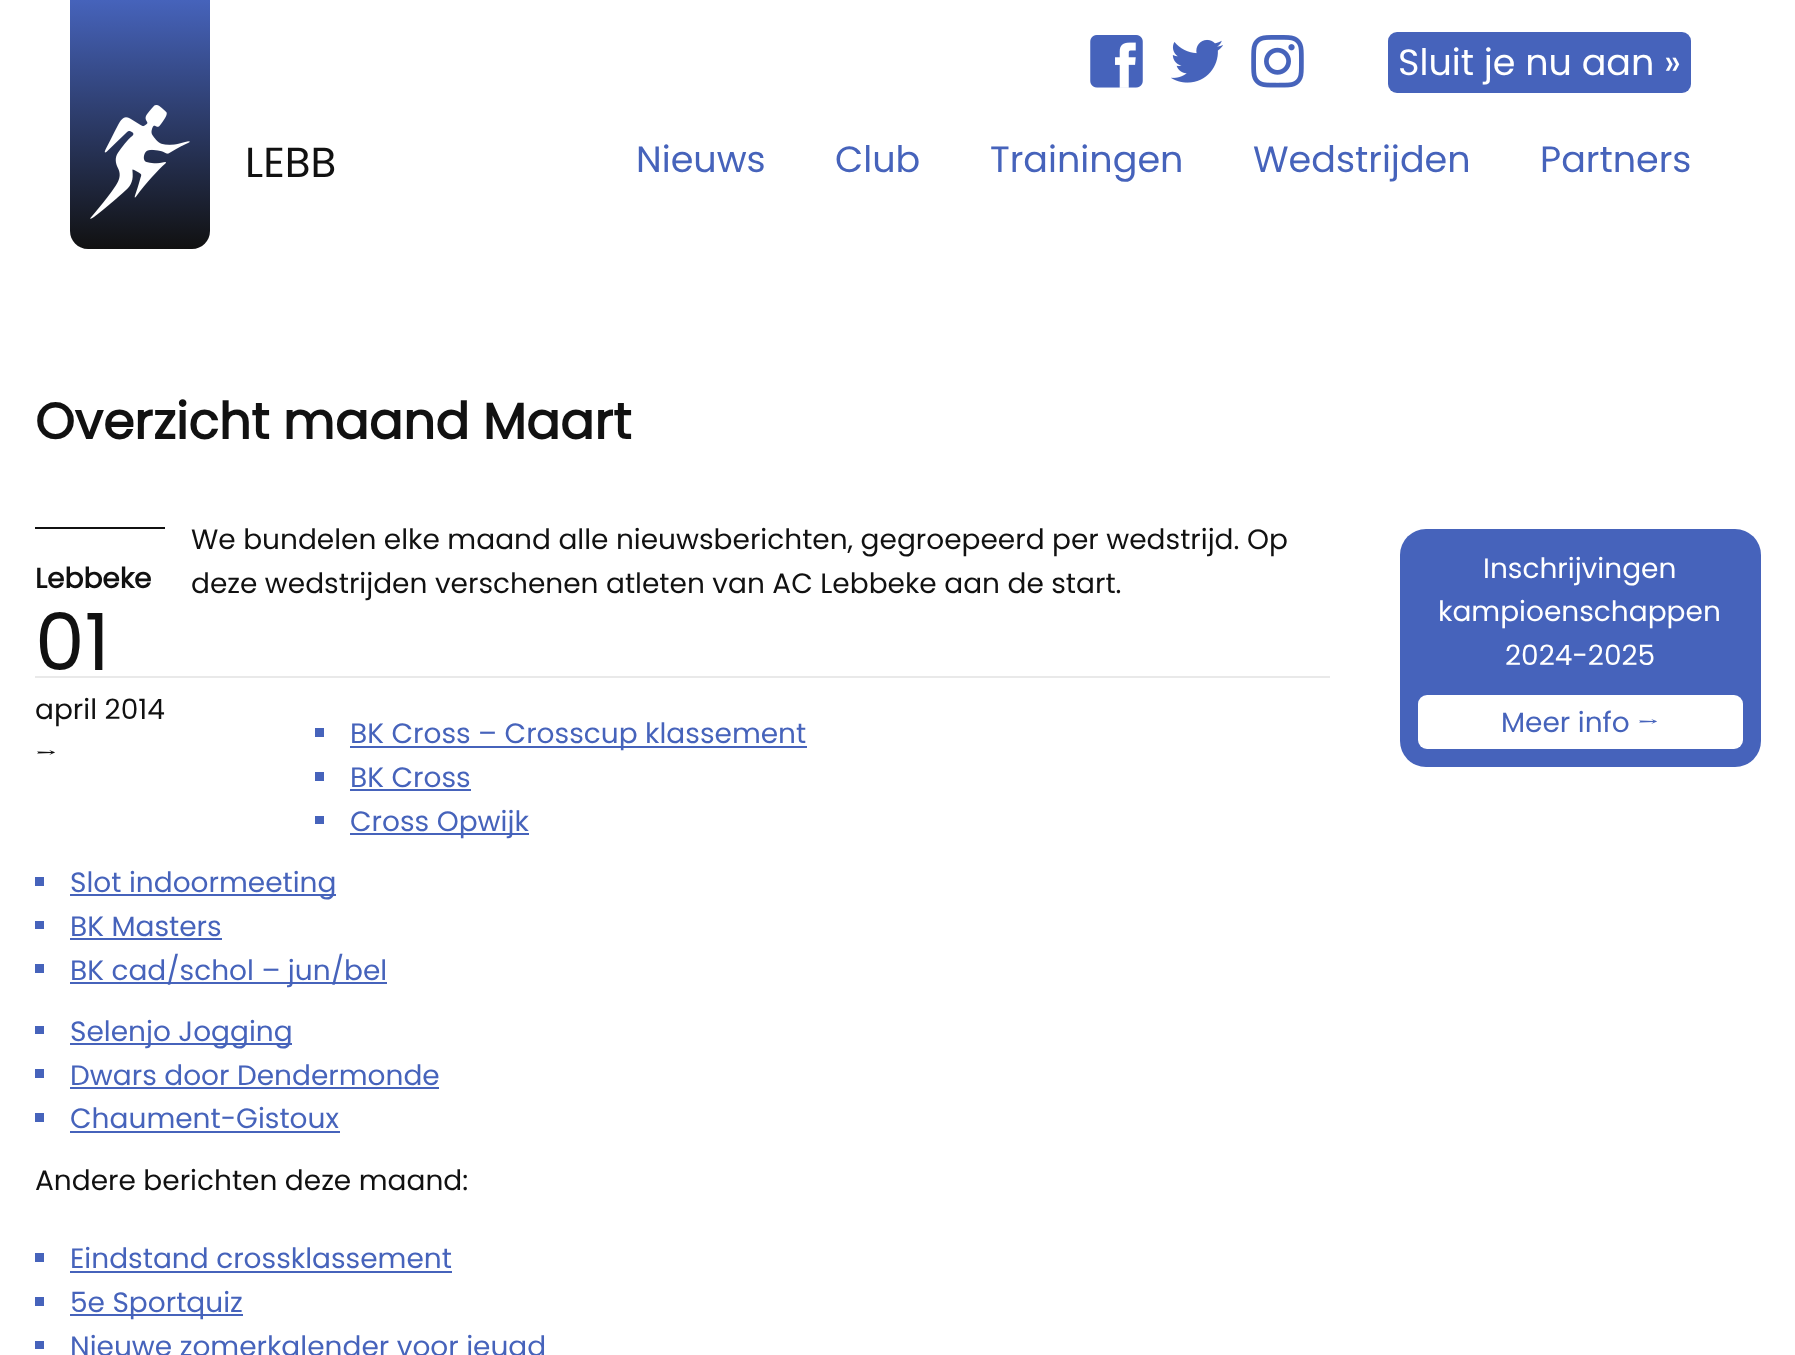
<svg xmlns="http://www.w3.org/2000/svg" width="1795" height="1355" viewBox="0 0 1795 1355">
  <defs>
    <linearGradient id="g1" gradientUnits="userSpaceOnUse" x1="140" y1="0" x2="140" y2="249"><stop offset="0" stop-color="#4663bb"/><stop offset="1" stop-color="#111"/></linearGradient>
  </defs>
  <rect width="100%" height="100%" fill="#fff"/>
  <path d="M70 0H210V231C210 241 202 249 192 249H88C78 249 70 241 70 231Z" fill="url(#g1)"/>
  <image x="90" y="105" width="100" height="114" href="img/1.png"/>
  <image x="1090" y="35" width="53" height="53" href="img/2.png"/>
  <image x="1171" y="39" width="52" height="44" href="img/3.png"/>
  <image x="1251" y="35" width="53" height="53" href="img/4.png"/>
  <rect x="1388" y="32" width="303" height="61" rx="9" fill="#4663bb"/>
  <path d="M35 676h1295v2H35z" fill="#e9e9e9"/>
  <path d="M315 728h9v9H315z" fill="#4663bb"/>
  <path d="M350 746h457v2H350z" fill="#4663bb"/>
  <path d="M315 772h9v9H315z" fill="#4663bb"/>
  <path d="M350 789h121v2H350z" fill="#4663bb"/>
  <path d="M315 816h9v8H315z" fill="#4663bb"/>
  <path d="M350 833h179v2H350z" fill="#4663bb"/>
  <path d="M35 877h9v9H35z" fill="#4663bb"/>
  <path d="M70 894h266v2H70z" fill="#4663bb"/>
  <path d="M35 921h9v8H35z" fill="#4663bb"/>
  <path d="M70 938h152v2H70z" fill="#4663bb"/>
  <path d="M35 964h9v9H35z" fill="#4663bb"/>
  <path d="M70 982h317v2H70z" fill="#4663bb"/>
  <path d="M35 1026h9v8H35z" fill="#4663bb"/>
  <path d="M70 1043h222v2H70z" fill="#4663bb"/>
  <path d="M35 1069h9v9H35z" fill="#4663bb"/>
  <path d="M70 1087h369v2H70z" fill="#4663bb"/>
  <path d="M35 1113h9v9H35z" fill="#4663bb"/>
  <path d="M70 1131h270v2H70z" fill="#4663bb"/>
  <path d="M35 1253h9v9H35z" fill="#4663bb"/>
  <path d="M70 1271h382v2H70z" fill="#4663bb"/>
  <path d="M35 1297h9v9H35z" fill="#4663bb"/>
  <path d="M70 1314h173v2H70z" fill="#4663bb"/>
  <path d="M35 1341h9v8H35z" fill="#4663bb"/>
  <path d="M35 527h130v2H35z" fill="#111"/>
  <rect x="1400" y="529" width="361" height="238" rx="26" fill="#4663bb"/>
  <rect x="1418" y="695" width="325" height="54" rx="9" fill="#fff"/>
  <text x="245" y="177" font-family="Poppins" font-size="42" fill="#111">LEBB</text>
  <text x="1398" y="75" font-family="Poppins" font-size="36.5" fill="#fff">Sluit je nu aan »</text>
  <g font-family="Poppins" font-size="36.5" fill="#4663bb">
    <text x="636" y="172">Nieuws</text>
    <text x="835" y="172">Club</text>
    <text x="990" y="172">Trainingen</text>
    <text x="1253" y="172">Wedstrijden</text>
    <text x="1540" y="172">Partners</text>
  </g>
  <text x="35" y="439" font-family="Poppins" font-size="50.4" font-weight="bold" fill="#111">Overzicht maand Maart</text>
  <g font-family="Poppins" font-size="28" fill="#111">
    <text x="191" y="549">We bundelen elke maand alle nieuwsberichten, gegroepeerd per wedstrijd. Op</text>
    <text x="191" y="593">deze wedstrijden verschenen atleten van AC Lebbeke aan de start.</text>
  </g>
  <g font-family="Poppins" font-size="28" fill="#4663bb">
    <text x="350" y="743">BK Cross – Crosscup klassement</text>
    <text x="350" y="787">BK Cross</text>
    <text x="350" y="831">Cross Opwijk</text>
    <text x="70" y="892">Slot indoormeeting</text>
    <text x="70" y="936">BK Masters</text>
    <text x="70" y="980">BK cad/schol – jun/bel</text>
    <text x="70" y="1041">Selenjo Jogging</text>
    <text x="70" y="1085">Dwars door Dendermonde</text>
    <text x="70" y="1128">Chaument-Gistoux</text>
  </g>
  <text x="35" y="1190" font-family="Poppins" font-size="28" fill="#111">Andere berichten deze maand:</text>
  <g font-family="Poppins" font-size="28" fill="#4663bb">
    <text x="70" y="1268">Eindstand crossklassement</text>
    <text x="70" y="1312">5e Sportquiz</text>
    <text x="70" y="1356">Nieuwe zomerkalender voor jeugd</text>
  </g>
  <text x="35" y="588" font-family="Poppins" font-size="28" font-weight="bold" fill="#111">Lebbeke</text>
  <text x="35" y="670" font-family="Poppins" font-size="79" fill="#111">01</text>
  <text x="35" y="719" font-family="Poppins" font-size="28" fill="#111">april 2014</text>
  <text x="35" y="763" font-family="Caladea" font-size="28" fill="#111">→</text>
  <g font-family="Poppins" font-size="28" fill="#fff">
    <text x="1483" y="578">Inschrijvingen</text>
    <text x="1438" y="621">kampioenschappen</text>
    <text x="1505" y="665">2024-2025</text>
  </g>
  <text x="1501" y="732" font-family="Poppins" font-size="28" fill="#4663bb">Meer info</text>
  <text x="1637" y="732" font-family="Caladea" font-size="28" fill="#4663bb">→</text>
</svg>
